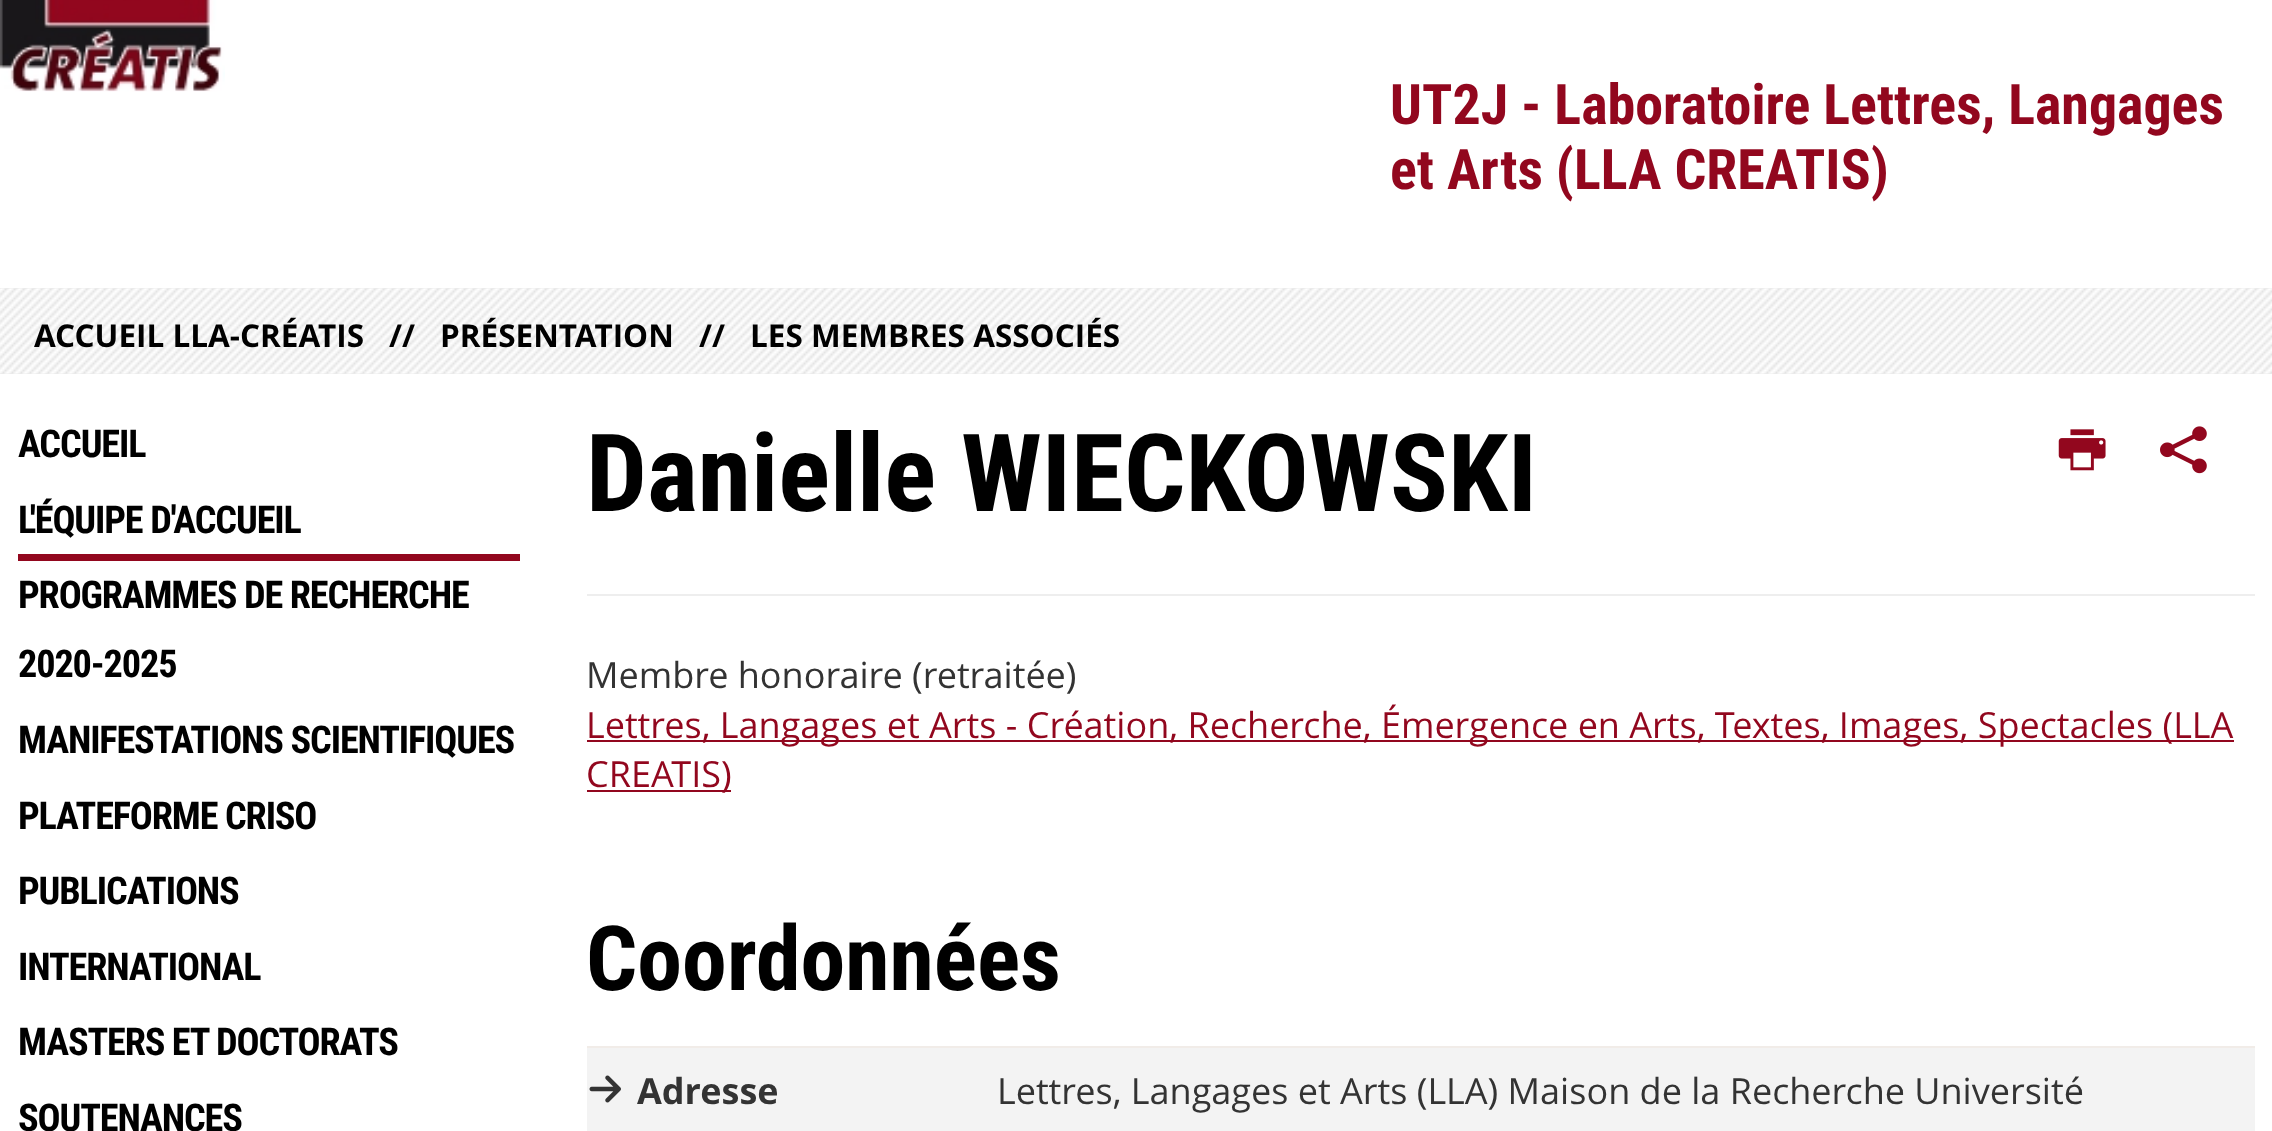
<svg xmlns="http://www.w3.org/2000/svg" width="2272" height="1131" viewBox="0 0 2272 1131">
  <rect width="100%" height="100%" fill="#fff"/>
  <image x="0" y="0" width="225" height="92" href="img/1.png"/>
  <path d="M0 288h2272v86H0z" fill="#e5e5e5"/>
  <image x="0" y="288" width="2272" height="86" href="img/2.png"/>
  <path d="M18 554h502v7H18z" fill="#92071e"/>
  <image x="2058" y="429" width="48" height="42" href="img/3.png"/>
  <image x="2160" y="426" width="47" height="48" href="img/4.png"/>
  <path d="M587 594h1668v2H587z" fill="#eee"/>
  <path d="M587 740h1647v2H587z" fill="#92071e"/>
  <path d="M587 790h144v2H587z" fill="#92071e"/>
  <path d="M587 1048h1668v83H587z" fill="#f3f3f3"/>
  <image x="589" y="1075" width="32" height="28" href="img/5.png"/>
  <path d="M587 1046h1668v2H587z" fill="#f1ece8"/>
  <g font-family="Roboto Condensed" font-size="56" font-weight="bold" fill="#92071e">
    <text x="1390" y="124">UT2J - Laboratoire Lettres, Langages</text>
    <text x="1390" y="189">et Arts (LLA CREATIS)</text>
  </g>
  <g font-family="Open Sans" font-size="31.5" font-weight="bold" fill="#000">
    <text x="34" y="347">ACCUEIL LLA-CRÉATIS</text>
    <text x="389" y="347">//</text>
    <text x="440" y="347">PRÉSENTATION</text>
    <text x="699" y="347">//</text>
    <text x="750" y="347">LES MEMBRES ASSOCIÉS</text>
  </g>
  <g font-family="Roboto Condensed" font-size="38.25" font-weight="bold" letter-spacing="-1.15" fill="#000">
    <text x="18" y="457">ACCUEIL</text>
    <text x="18" y="533">L'ÉQUIPE D'ACCUEIL</text>
    <text x="18" y="608">PROGRAMMES DE RECHERCHE</text>
    <text x="18" y="677">2020-2025</text>
    <text x="18" y="753">MANIFESTATIONS SCIENTIFIQUES</text>
    <text x="18" y="829">PLATEFORME CRISO</text>
    <text x="18" y="904">PUBLICATIONS</text>
    <text x="18" y="980">INTERNATIONAL</text>
    <text x="18" y="1055">MASTERS ET DOCTORATS</text>
    <text x="18" y="1131">SOUTENANCES</text>
  </g>
  <text x="586" y="511" font-family="Roboto Condensed" font-size="108" font-weight="bold" fill="#000">Danielle WIECKOWSKI</text>
  <text x="586" y="688" font-family="Open Sans" font-size="36" fill="#333">Membre honoraire (retraitée)</text>
  <g font-family="Open Sans" font-size="36" fill="#92071e">
    <text x="586" y="738">Lettres, Langages et Arts - Création, Recherche, Émergence en Arts, Textes, Images, Spectacles (LLA</text>
    <text x="586" y="787">CREATIS)</text>
  </g>
  <text x="586" y="990" font-family="Roboto Condensed" font-size="90" font-weight="bold" fill="#000">Coordonnées</text>
  <text x="637" y="1104" font-family="Open Sans" font-size="36" font-weight="bold" fill="#333">Adresse</text>
  <text x="997" y="1104" font-family="Open Sans" font-size="36" fill="#333">Lettres, Langages et Arts (LLA) Maison de la Recherche Université</text>
</svg>
